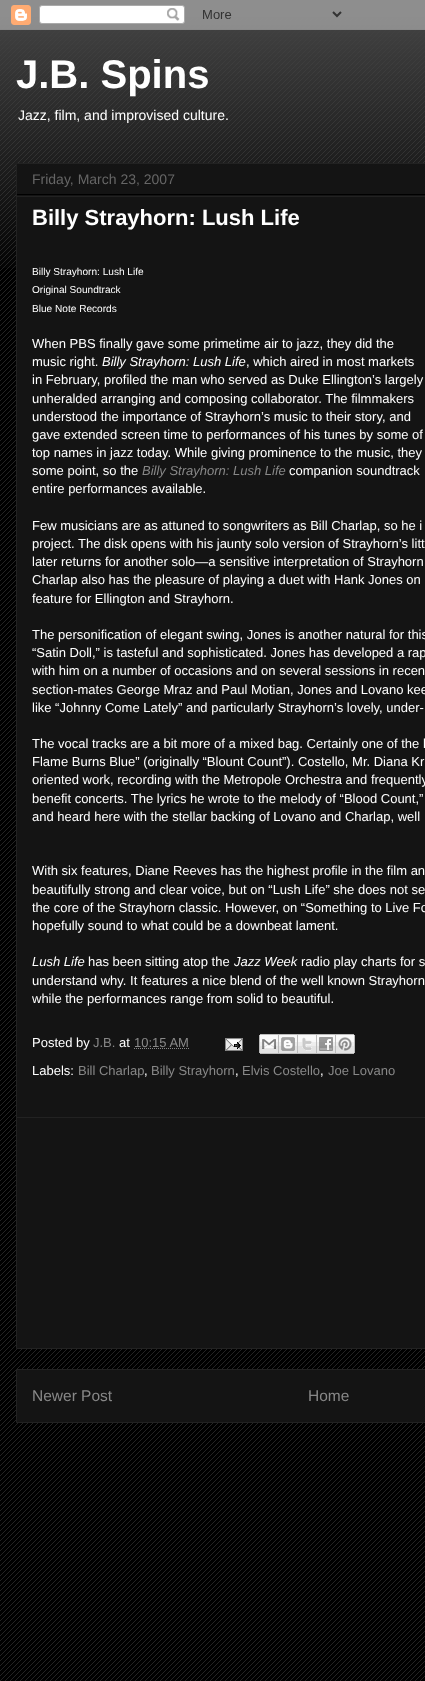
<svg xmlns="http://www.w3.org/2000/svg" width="425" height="1681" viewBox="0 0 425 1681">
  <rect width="100%" height="100%" fill="#000"/>
  <image x="0" y="13" width="425" height="1668" href="img/1.png"/>
  <image x="0" y="0" width="425" height="268" href="img/2.png"/>
  <image x="0" y="0" width="425" height="30" href="img/3.png"/>
  <path d="M16.5 163.5h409v1185H16.5z" fill="#141414" stroke="#222"/>
  <path d="M17 194h408v1H17z" fill="#000"/>
  <path d="M17 196h408v1H17z" fill="#222"/>
  <path d="M134 1048.5H189" fill="none" stroke="#888" stroke-dasharray="1 1"/>
  <image x="225" y="1038" width="18" height="13" href="img/4.png"/>
  <image x="259" y="1034" width="20" height="20" href="img/5.png"/>
  <image x="279" y="1034" width="19" height="20" href="img/6.png"/>
  <image x="298" y="1034" width="19" height="20" href="img/7.png"/>
  <image x="317" y="1034" width="19" height="20" href="img/8.png"/>
  <image x="336" y="1034" width="19" height="20" href="img/9.png"/>
  <path d="M17 1117h408v1H17z" fill="#222"/>
  <path d="M16.5 1369.5h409v53H16.5z" fill="#141414" stroke="#222"/>
  <text x="16" y="88" font-family="Liberation Sans" font-size="40" font-weight="bold" fill="#fff">J.B. Spins</text>
  <text x="18" y="120" font-family="Liberation Sans" font-size="14" fill="#fff">Jazz, film, and improvised culture.</text>
  <text x="32" y="184" font-family="Liberation Sans" font-size="14" fill="#666">Friday, March 23, 2007</text>
  <text x="32" y="225" font-family="Liberation Sans" font-size="22" font-weight="bold" fill="#fff">Billy Strayhorn: Lush Life</text>
  <g font-family="Liberation Sans" font-size="10.1" fill="#fff">
    <text x="32" y="275">Billy Strayhorn: Lush Life</text>
    <text x="32" y="293">Original Soundtrack</text>
    <text x="32" y="312">Blue Note Records</text>
  </g>
  <g font-family="Liberation Sans" font-size="13" fill="#fff">
    <text x="32" y="348">When PBS finally gave some primetime air to jazz, they did the</text>
    <text x="32" y="366">music right.</text>
  </g>
  <text x="102" y="366" font-family="Liberation Sans" font-size="13" font-style="italic" fill="#fff">Billy Strayhorn: Lush Life</text>
  <g font-family="Liberation Sans" font-size="13" fill="#fff">
    <text x="246" y="366">, which aired in most markets</text>
    <text x="32" y="384">in February, profiled the man who served as Duke Ellington’s largely</text>
    <text x="32" y="403">unheralded arranging and composing collaborator. The filmmakers</text>
    <text x="32" y="421">understood the importance of Strayhorn’s music to their story, and</text>
    <text x="32" y="439">gave extended screen time to performances of his tunes by some of</text>
    <text x="32" y="457">top names in jazz today. While giving prominence to the music, they</text>
    <text x="32" y="475">some point, so the</text>
  </g>
  <text x="142" y="475" font-family="Liberation Sans" font-size="13" font-style="italic" fill="#888">Billy Strayhorn: Lush Life</text>
  <g font-family="Liberation Sans" font-size="13" fill="#fff">
    <text x="289" y="475">companion soundtrack</text>
    <text x="32" y="493">entire performances available.</text>
    <text x="32" y="530">Few musicians are as attuned to songwriters as Bill Charlap, so he i</text>
    <text x="32" y="548">project. The disk opens with his jaunty solo version of Strayhorn’s litt</text>
    <text x="32" y="566">later returns for another solo—a sensitive interpretation of Strayhorn</text>
    <text x="32" y="584">Charlap also has the pleasure of playing a duet with Hank Jones on</text>
    <text x="32" y="603">feature for Ellington and Strayhorn.</text>
    <text x="32" y="639">The personification of elegant swing, Jones is another natural for this</text>
    <text x="32" y="657">“Satin Doll,” is tasteful and sophisticated. Jones has developed a rap</text>
    <text x="32" y="675">with him on a number of occasions and on several sessions in recen</text>
    <text x="32" y="694">section-mates George Mraz and Paul Motian, Jones and Lovano kee</text>
    <text x="32" y="712">like “Johnny Come Lately” and particularly Strayhorn’s lovely, under-</text>
    <text x="32" y="748">The vocal tracks are a bit more of a mixed bag. Certainly one of the h</text>
    <text x="32" y="766">Flame Burns Blue” (originally “Blount Count”). Costello, Mr. Diana Kr</text>
    <text x="32" y="784">oriented work, recording with the Metropole Orchestra and frequently</text>
    <text x="32" y="803">benefit concerts. The lyrics he wrote to the melody of “Blood Count,”</text>
    <text x="32" y="821">and heard here with the stellar backing of Lovano and Charlap, well</text>
    <text x="32" y="875">With six features, Diane Reeves has the highest profile in the film an</text>
    <text x="32" y="894">beautifully strong and clear voice, but on “Lush Life” she does not se</text>
    <text x="32" y="912">the core of the Strayhorn classic. However, on “Something to Live Fo</text>
    <text x="32" y="930">hopefully sound to what could be a downbeat lament.</text>
  </g>
  <text x="32" y="966" font-family="Liberation Sans" font-size="13" font-style="italic" fill="#fff">Lush Life</text>
  <text x="88" y="966" font-family="Liberation Sans" font-size="13" fill="#fff">has been sitting atop the</text>
  <text x="234" y="966" font-family="Liberation Sans" font-size="13" font-style="italic" fill="#fff">Jazz Week</text>
  <g font-family="Liberation Sans" font-size="13" fill="#fff">
    <text x="301" y="966">radio play charts for s</text>
    <text x="32" y="985">understand why. It features a nice blend of the well known Strayhorn</text>
    <text x="32" y="1003">while the performances range from solid to beautiful.</text>
    <text x="32" y="1047">Posted by</text>
  </g>
  <text x="93" y="1047" font-family="Liberation Sans" font-size="13" fill="#888">J.B.</text>
  <text x="119" y="1047" font-family="Liberation Sans" font-size="13" fill="#fff">at</text>
  <text x="134" y="1047" font-family="Liberation Sans" font-size="13" fill="#888">10:15 AM</text>
  <text x="32" y="1075" font-family="Liberation Sans" font-size="13" fill="#fff">Labels:</text>
  <text x="78" y="1075" font-family="Liberation Sans" font-size="13" fill="#888">Bill Charlap</text>
  <text x="144" y="1075" font-family="Liberation Sans" font-size="13" fill="#fff">,</text>
  <text x="151" y="1075" font-family="Liberation Sans" font-size="13" fill="#888">Billy Strayhorn</text>
  <text x="235" y="1075" font-family="Liberation Sans" font-size="13" fill="#fff">,</text>
  <text x="242" y="1075" font-family="Liberation Sans" font-size="13" fill="#888">Elvis Costello</text>
  <text x="320" y="1075" font-family="Liberation Sans" font-size="13" fill="#fff">,</text>
  <text x="328" y="1075" font-family="Liberation Sans" font-size="13" fill="#888">Joe Lovano</text>
  <g font-family="Liberation Sans" font-size="15.5" fill="#888">
    <text x="32" y="1401">Newer Post</text>
    <text x="308" y="1401">Home</text>
  </g>
</svg>
